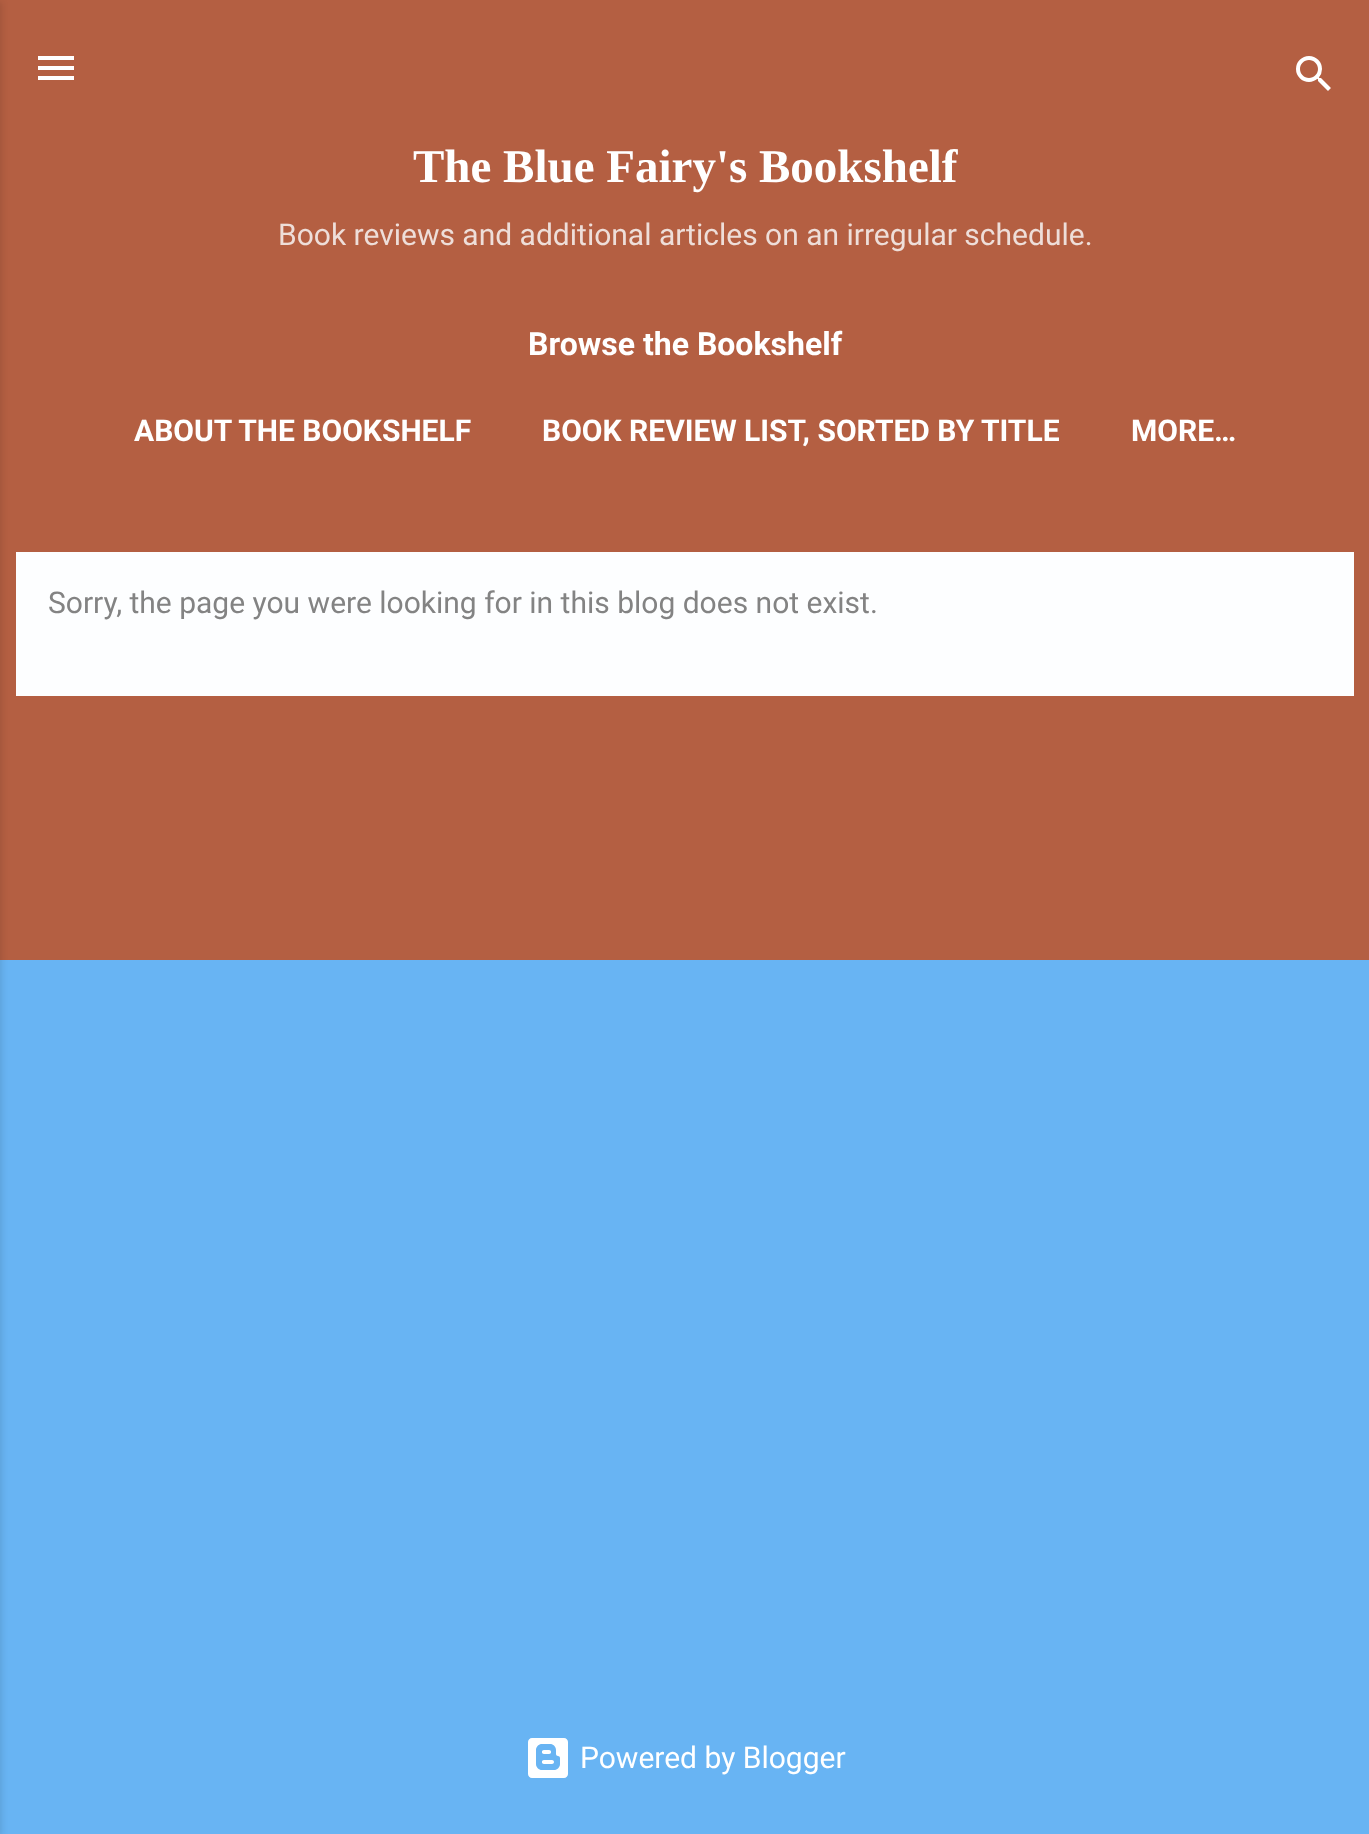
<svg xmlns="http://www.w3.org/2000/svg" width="1369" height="1834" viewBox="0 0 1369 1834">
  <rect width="100%" height="100%" fill="#68b4f3"/>
  <path d="M0 0h1369v960H0z" fill="#b45f42"/>
  <path d="M-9 2h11v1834H-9z" fill="#0000001a" filter="blur(3px)"/>
  <image x="38" y="56" width="36" height="24" href="img/1.png"/>
  <image x="1296" y="56" width="35" height="35" href="img/2.png"/>
  <path d="M16 552h1338v144H16z" fill="#fdfeff"/>
  <image x="528" y="1738" width="40" height="40" href="img/3.png"/>
  <text x="413" y="182" font-family="Liberation Serif" font-size="47" font-weight="bold" fill="#fff">The Blue Fairy's Bookshelf</text>
  <text x="278" y="245" font-family="Roboto" font-size="30" fill="#eeded9">Book reviews and additional articles on an irregular schedule.</text>
  <text x="528" y="355" font-family="Roboto" font-size="32" font-weight="bold" fill="#fff">Browse the Bookshelf</text>
  <g font-family="Roboto" font-size="30" font-weight="bold" fill="#fff">
    <text x="134" y="441">ABOUT THE BOOKSHELF</text>
    <text x="542" y="441">BOOK REVIEW LIST, SORTED BY TITLE</text>
    <text x="1131" y="441">MORE…</text>
  </g>
  <text x="48" y="613" font-family="Roboto" font-size="30" fill="#838383">Sorry, the page you were looking for in this blog does not exist.</text>
  <text x="580" y="1768" font-family="Roboto" font-size="30" fill="#fff">Powered by Blogger</text>
</svg>
